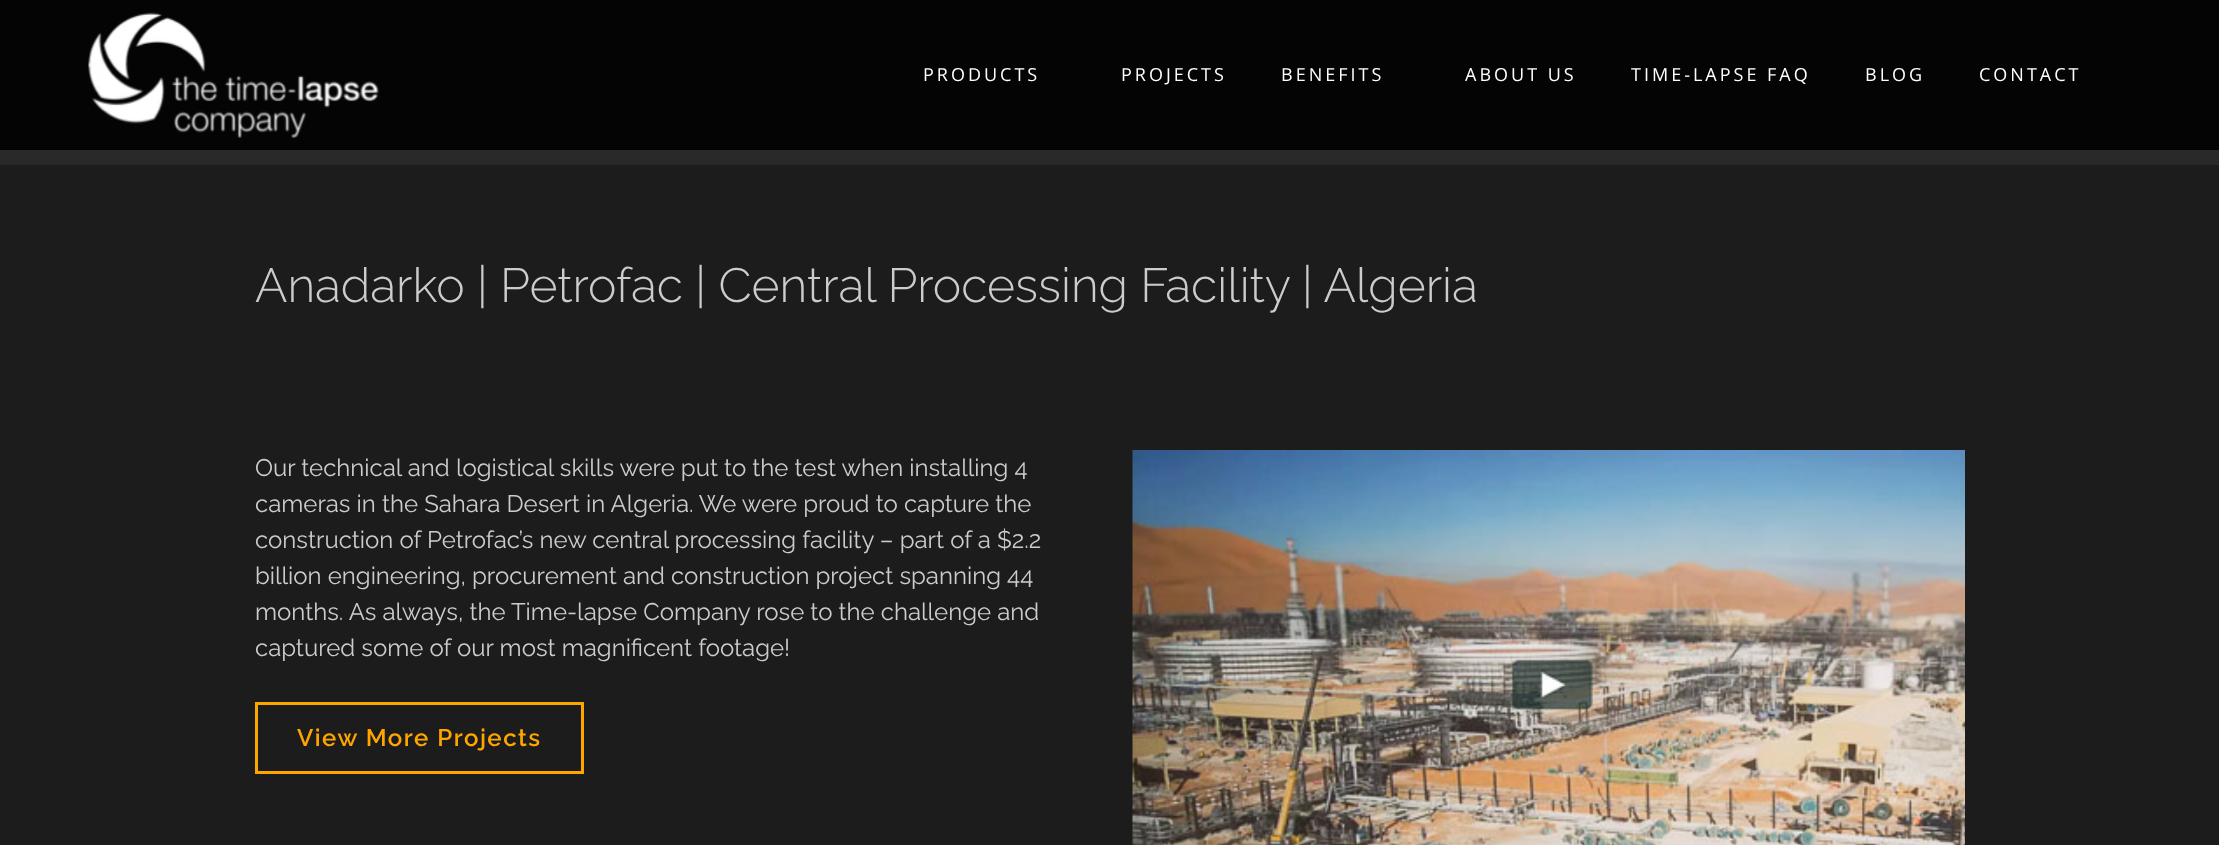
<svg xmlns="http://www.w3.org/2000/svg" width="2219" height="845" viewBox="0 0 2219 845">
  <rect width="100%" height="100%" fill="#292929"/>
  <path d="M0 0h2219v150H0z" fill="#040404"/>
  <image x="88" y="12" width="291" height="126" href="img/1.png"/>
  <path d="M0 165h2219v680H0z" fill="#1c1c1c"/>
  <path d="M256.5 703.5h326v69H256.5z" fill="none" stroke="#ffa500" stroke-width="3"/>
  <image x="1132" y="450" width="833" height="395" href="img/2.png"/>
  <g font-family="Open Sans" font-size="18" letter-spacing="3" fill="#fff">
    <text x="923" y="81">PRODUCTS</text>
    <text x="1121" y="81">PROJECTS</text>
    <text x="1281" y="81">BENEFITS</text>
    <text x="1465" y="81">ABOUT US</text>
    <text x="1631" y="81">TIME-LAPSE FAQ</text>
    <text x="1865" y="81">BLOG</text>
    <text x="1979" y="81">CONTACT</text>
  </g>
  <text x="255" y="302" font-family="Raleway" font-size="48" font-weight="300" fill="#ccc">Anadarko | Petrofac | Central Processing Facility | Algeria</text>
  <g font-family="Raleway" font-size="24" fill="#ccc">
    <text x="255" y="476">Our technical and logistical skills were put to the test when installing 4</text>
    <text x="255" y="512">cameras in the Sahara Desert in Algeria. We were proud to capture the</text>
    <text x="255" y="548">construction of Petrofac’s new central processing facility – part of a $2.2</text>
    <text x="255" y="584">billion engineering, procurement and construction project spanning 44</text>
    <text x="255" y="620">months. As always, the Time-lapse Company rose to the challenge and</text>
    <text x="255" y="656">captured some of our most magnificent footage!</text>
  </g>
  <text x="297" y="746" font-family="Raleway" font-size="24" font-weight="600" letter-spacing="1.5" fill="#ffa500">View More Projects</text>
</svg>
